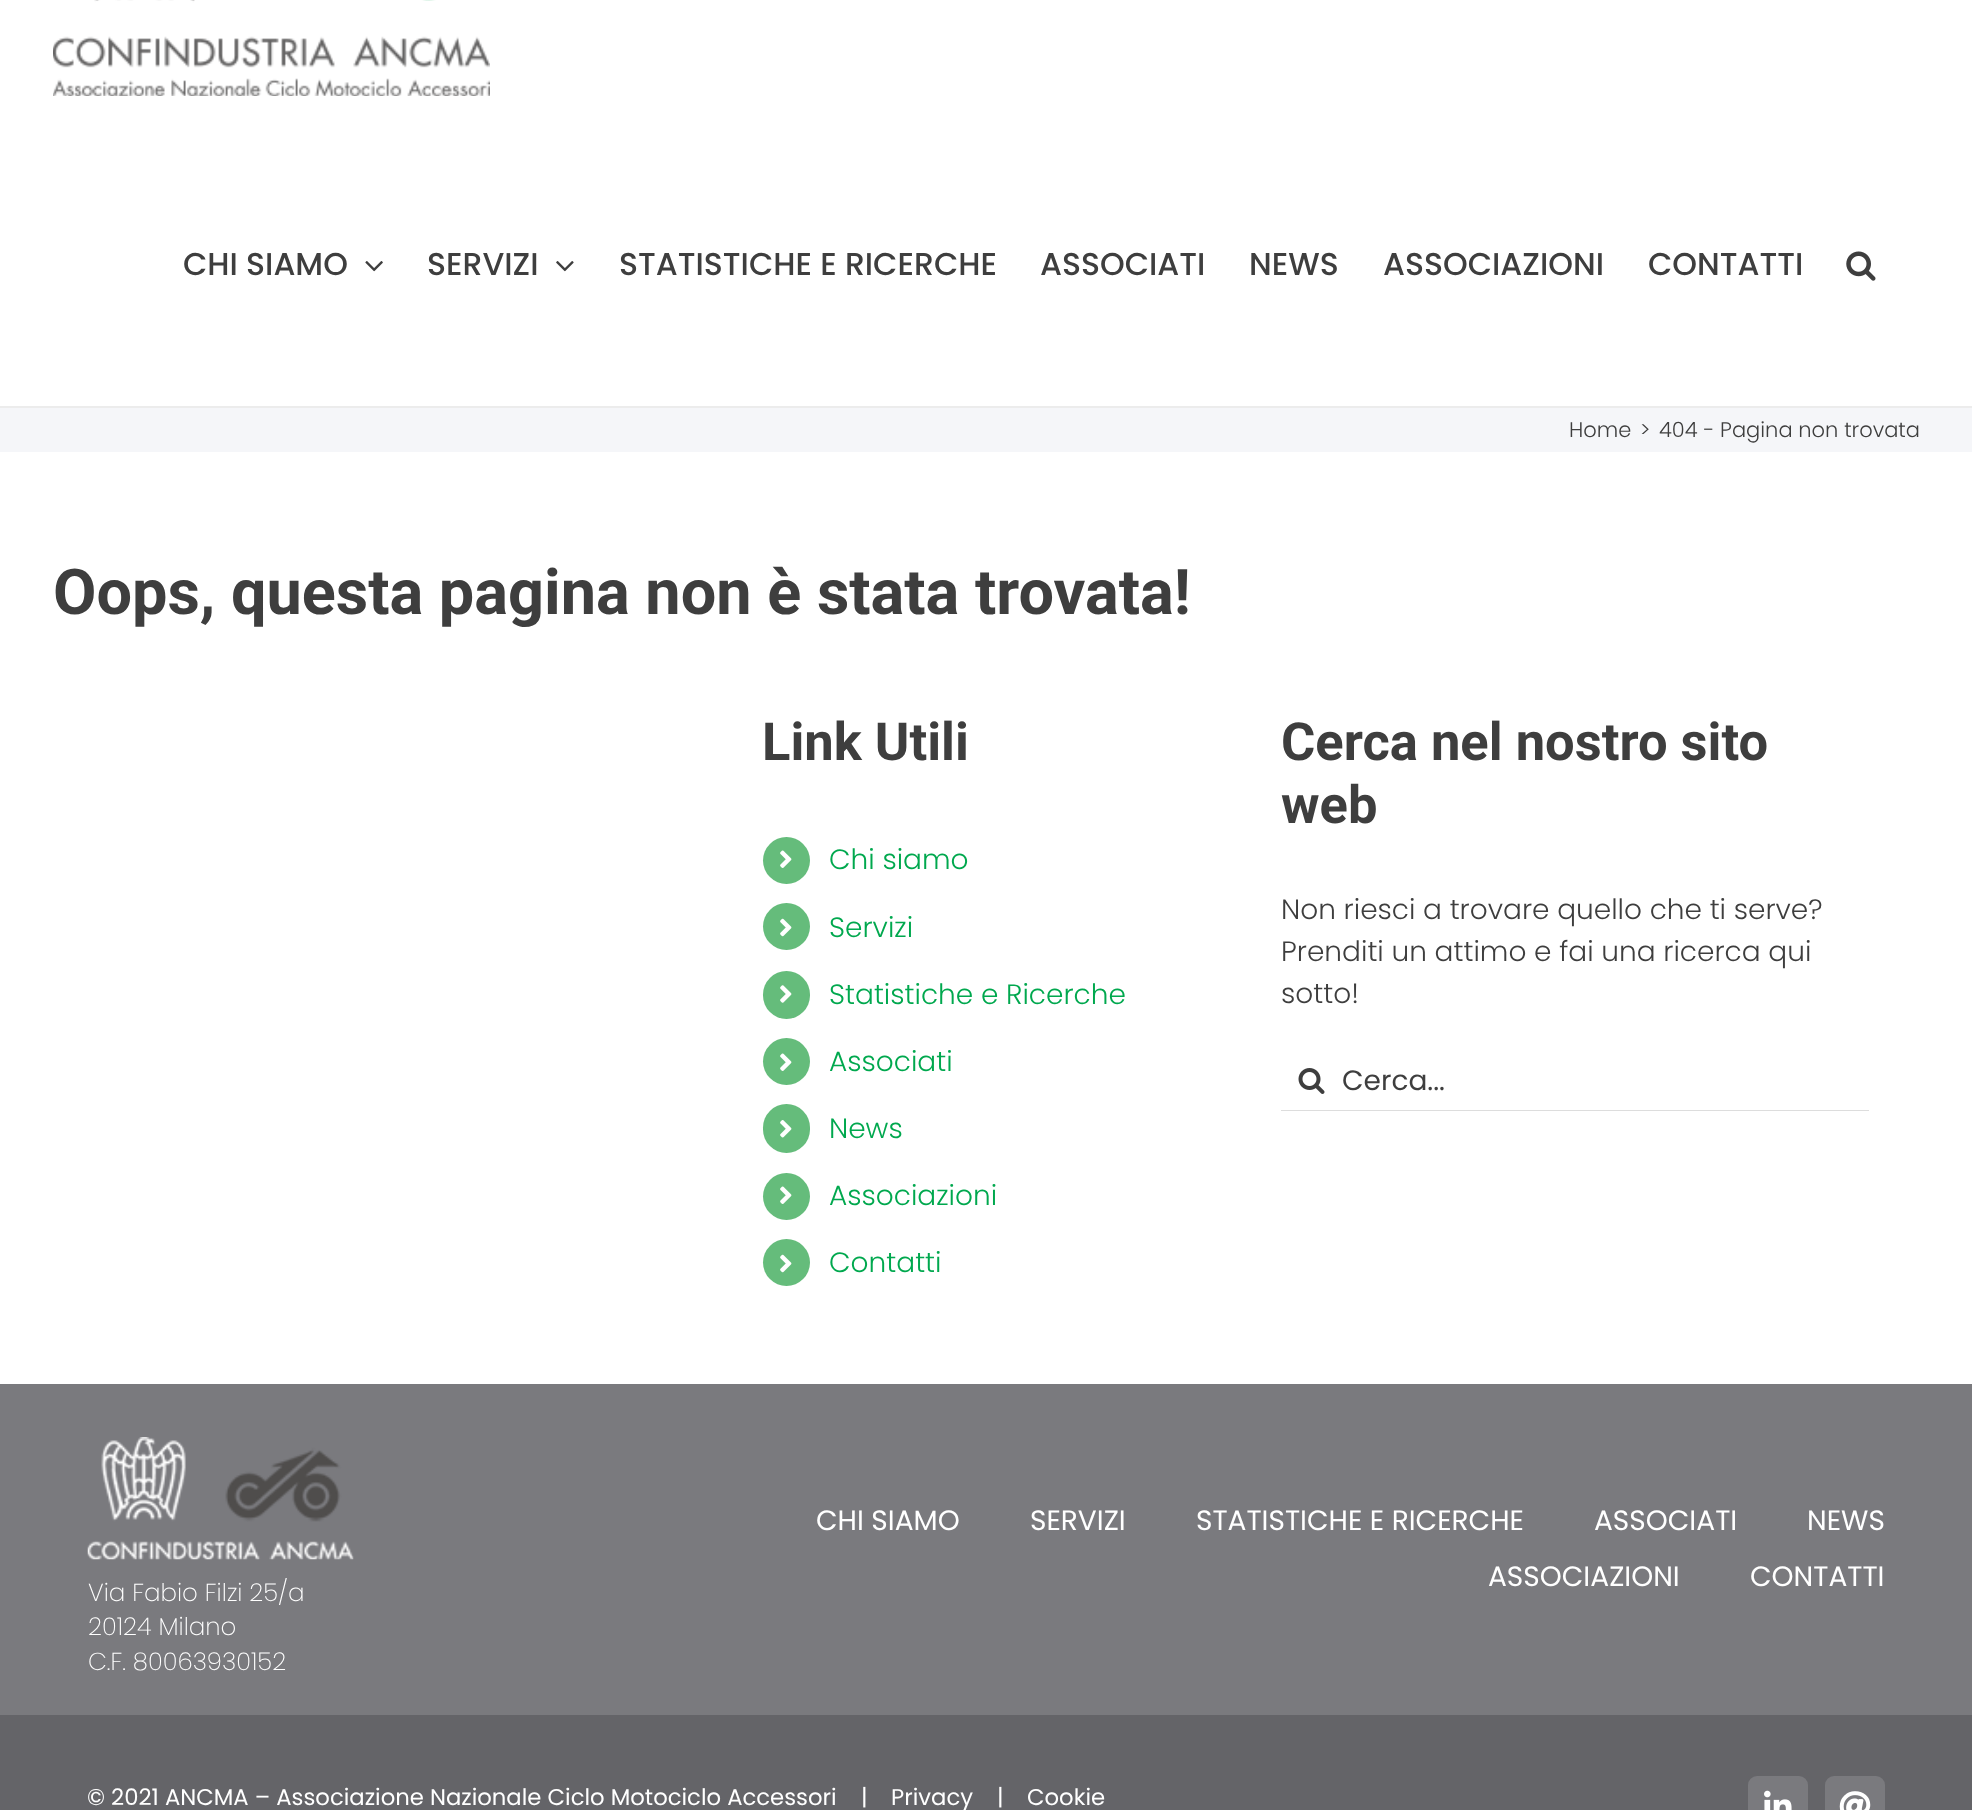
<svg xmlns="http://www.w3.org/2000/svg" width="1972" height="1810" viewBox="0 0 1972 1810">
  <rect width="100%" height="100%" fill="#fff"/>
  <path d="M0 406h1972v2H0z" fill="#ececec"/>
  <image x="53" y="0" width="437" height="96" href="img/1.png"/>
  <image x="365" y="261" width="18" height="11" href="img/2.png"/>
  <image x="556" y="261" width="18" height="11" href="img/3.png"/>
  <image x="1846" y="251" width="30" height="30" href="img/4.png"/>
  <path d="M0 408h1972v44H0z" fill="#f5f6f9"/>
  <circle cx="786.5" cy="860.5" r="23.5" fill="#65bc7b"/>
  <image x="780" y="850" width="12" height="18" href="img/5.png"/>
  <circle cx="786.5" cy="926.5" r="23.5" fill="#65bc7b"/>
  <image x="780" y="918" width="12" height="19" href="img/6.png"/>
  <rect x="763" y="971" width="47" height="48" rx="23.5" fill="#65bc7b"/>
  <image x="780" y="985" width="12" height="18" href="img/7.png"/>
  <circle cx="786.5" cy="1061.5" r="23.5" fill="#65bc7b"/>
  <image x="780" y="1053" width="12" height="18" href="img/5.png"/>
  <rect x="763" y="1104" width="47" height="49" rx="23.5" fill="#65bc7b"/>
  <image x="780" y="1120" width="12" height="18" href="img/8.png"/>
  <circle cx="786.5" cy="1196.5" r="23.5" fill="#65bc7b"/>
  <image x="780" y="1186" width="12" height="18" href="img/5.png"/>
  <circle cx="786.5" cy="1262.5" r="23.5" fill="#65bc7b"/>
  <image x="780" y="1254" width="12" height="19" href="img/6.png"/>
  <image x="1298" y="1068" width="27" height="26" href="img/9.png"/>
  <path d="M1281 1110h588v1H1281z" fill="#ddd"/>
  <path d="M0 1384h1972v331H0z" fill="#7a7a7e"/>
  <image x="87" y="1437" width="267" height="123" href="img/10.png"/>
  <path d="M0 1715h1972v95H0z" fill="#646468"/>
  <rect x="1748" y="1776" width="60" height="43" rx="9" fill="#7a7a7e"/>
  <image x="1764" y="1790" width="28" height="20" href="img/11.png"/>
  <rect x="1825" y="1776" width="60" height="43" rx="9" fill="#7a7a7e"/>
  <image x="1839" y="1791" width="32" height="19" href="img/12.png"/>
  <g font-family="Poppins" font-size="31.5" font-weight="500" fill="#3e3e3e">
    <text x="183" y="275">CHI SIAMO</text>
    <text x="427" y="275">SERVIZI</text>
    <text x="619" y="275">STATISTICHE E RICERCHE</text>
    <text x="1040" y="275">ASSOCIATI</text>
    <text x="1249" y="275">NEWS</text>
    <text x="1383" y="275">ASSOCIAZIONI</text>
    <text x="1648" y="275">CONTATTI</text>
  </g>
  <g font-family="Poppins" font-size="21" font-weight="300" fill="#3e3e3e">
    <text x="1569" y="437">Home</text>
    <text x="1640" y="437">&gt;</text>
    <text x="1659" y="437">404 - Pagina non trovata</text>
  </g>
  <text x="53" y="614" font-family="Roboto" font-size="63" font-weight="bold" fill="#3e3e3e">Oops, questa pagina non è stata trovata!</text>
  <text x="762" y="760" font-family="Roboto" font-size="52.5" font-weight="bold" fill="#3e3e3e">Link Utili</text>
  <g font-family="Poppins" font-size="28" font-weight="300" fill="#00a84e">
    <text x="829" y="869">Chi siamo</text>
    <text x="829" y="937">Servizi</text>
    <text x="829" y="1004">Statistiche e Ricerche</text>
    <text x="829" y="1071">Associati</text>
    <text x="829" y="1138">News</text>
    <text x="829" y="1205">Associazioni</text>
    <text x="829" y="1272">Contatti</text>
  </g>
  <g font-family="Roboto" font-size="52.5" font-weight="bold" fill="#3e3e3e">
    <text x="1281" y="760">Cerca nel nostro sito</text>
    <text x="1281" y="823">web</text>
  </g>
  <g font-family="Poppins" font-size="28" font-weight="300" fill="#3e3e3e">
    <text x="1281" y="919">Non riesci a trovare quello che ti serve?</text>
    <text x="1281" y="961">Prenditi un attimo e fai una ricerca qui</text>
    <text x="1281" y="1003">sotto!</text>
  </g>
  <text x="1342" y="1090" font-family="Poppins" font-size="28" fill="#3e3e3e">Cerca...</text>
  <g font-family="Poppins" font-size="28" fill="#fff">
    <text x="816" y="1530">CHI SIAMO</text>
    <text x="1030" y="1530">SERVIZI</text>
    <text x="1196" y="1530">STATISTICHE E RICERCHE</text>
    <text x="1594" y="1530">ASSOCIATI</text>
    <text x="1807" y="1530">NEWS</text>
    <text x="1488" y="1586">ASSOCIAZIONI</text>
    <text x="1750" y="1586">CONTATTI</text>
  </g>
  <g font-family="Poppins" font-size="24.5" font-weight="200" fill="#fff">
    <text x="88" y="1601">Via Fabio Filzi 25/a</text>
    <text x="88" y="1635">20124 Milano</text>
    <text x="88" y="1670">C.F. 80063930152</text>
  </g>
  <g font-family="Poppins" font-size="22.75" fill="#fff">
    <text x="87" y="1805">© 2021 ANCMA – Associazione Nazionale Ciclo Motociclo Accessori</text>
    <text x="861" y="1805">|</text>
    <text x="891" y="1805">Privacy</text>
    <text x="997" y="1805">|</text>
    <text x="1027" y="1805">Cookie</text>
  </g>
</svg>
